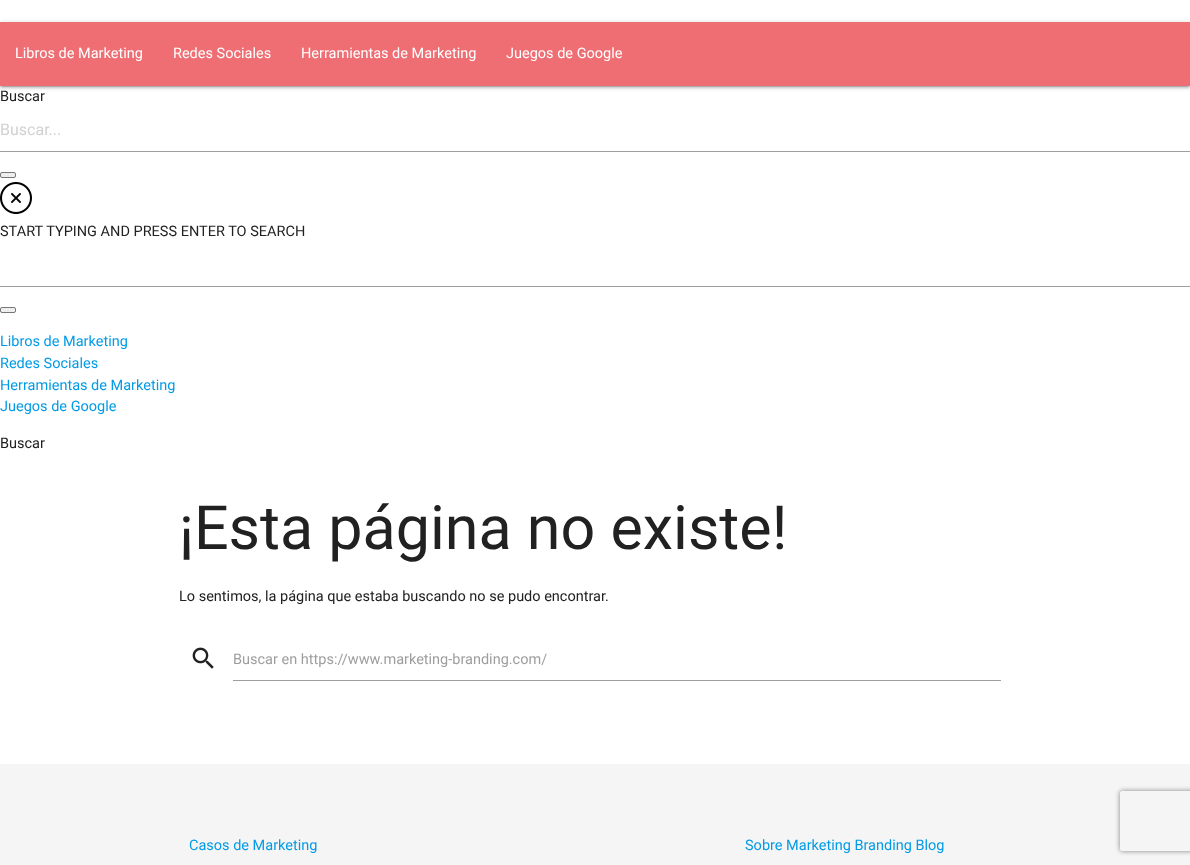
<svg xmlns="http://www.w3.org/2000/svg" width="1190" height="865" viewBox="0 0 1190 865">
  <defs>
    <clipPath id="clip1"><path d="M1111 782H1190V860H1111ZM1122 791H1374C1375 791 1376 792 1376 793V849C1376 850 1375 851 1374 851H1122C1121 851 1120 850 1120 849V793C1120 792 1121 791 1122 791Z" clip-rule="evenodd"/></clipPath>
  </defs>
  <rect width="100%" height="100%" fill="#fff"/>
  <path d="M0 23h1190v64H0z" fill="#00000033" filter="blur(2.5px)"/>
  <path d="M2 27h1186v60H2z" fill="#0000001f" filter="blur(0.5px)"/>
  <path d="M0 24h1190v64H0z" fill="#00000024" filter="blur(1px)"/>
  <path d="M0 22h1190v64H0z" fill="#ee6e73"/>
  <path d="M0 151h1190v1H0z" fill="#9e9e9e"/>
  <rect x="0.5" y="172.5" width="15" height="5" rx="1.5" fill="#efefef" stroke="#767676"/>
  <image x="0" y="182" width="32" height="32" href="img/1.png"/>
  <path d="M0 286h1190v1H0z" fill="#9e9e9e"/>
  <rect x="0.5" y="307.5" width="15" height="5" rx="1.5" fill="#efefef" stroke="#767676"/>
  <image x="192" y="647" width="22" height="22" href="img/2.png"/>
  <path d="M233 680h768v1H233z" fill="#9e9e9e"/>
  <path d="M0 764h1190v101H0z" fill="#f5f5f5"/>
  <g clip-path="url(#clip1)">
    <rect x="1120" y="791" width="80" height="60" rx="2" fill="#808080" filter="blur(2.5px)"/>
  </g>
  <g font-family="Roboto" font-size="14.5" fill="#fff">
    <text x="15" y="58">Libros de Marketing</text>
    <text x="173" y="58">Redes Sociales</text>
    <text x="301" y="58">Herramientas de Marketing</text>
    <text x="506" y="58">Juegos de Google</text>
  </g>
  <text x="0" y="101" font-family="Roboto" font-size="14.5" fill="#212121">Buscar</text>
  <text x="0" y="135" font-family="Roboto" font-size="16" fill="#d1d1d1">Buscar...</text>
  <text x="0" y="236" font-family="Roboto" font-size="14.5" fill="#212121">START TYPING AND PRESS ENTER TO SEARCH</text>
  <g font-family="Roboto" font-size="14.5" fill="#039be5">
    <text x="0" y="346">Libros de Marketing</text>
    <text x="0" y="368">Redes Sociales</text>
    <text x="0" y="390">Herramientas de Marketing</text>
    <text x="0" y="411">Juegos de Google</text>
  </g>
  <text x="0" y="448" font-family="Roboto" font-size="14.5" fill="#212121">Buscar</text>
  <text x="179" y="549" font-family="Roboto" font-size="61" fill="#212121">¡Esta página no existe!</text>
  <text x="179" y="601" font-family="Roboto" font-size="14.5" fill="#212121">Lo sentimos, la página que estaba buscando no se pudo encontrar.</text>
  <text x="233" y="664" font-family="Roboto" font-size="14.5" fill="#9e9e9e">Buscar en https://www.marketing-branding.com/</text>
  <g font-family="Roboto" font-size="14.5" fill="#039be5">
    <text x="189" y="850">Casos de Marketing</text>
    <text x="745" y="850">Sobre Marketing Branding Blog</text>
  </g>
</svg>
